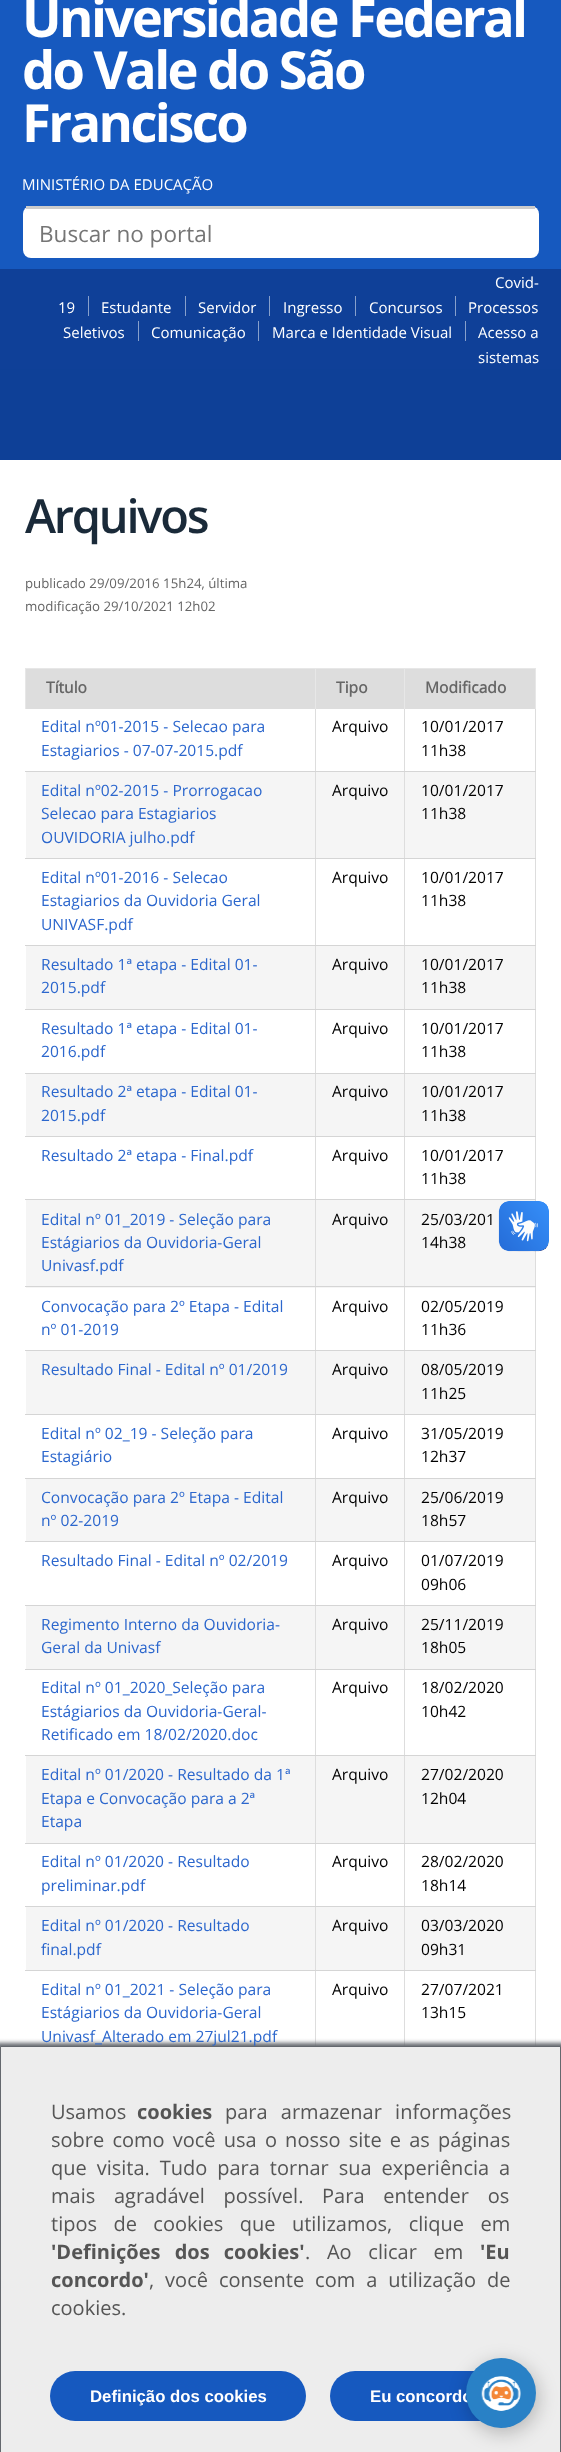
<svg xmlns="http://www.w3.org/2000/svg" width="561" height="2452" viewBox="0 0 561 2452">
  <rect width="100%" height="100%" fill="#fff"/>
  <path d="M0 0h561v269H0z" fill="#1659bf"/>
  <rect x="23" y="206" width="516" height="52" rx="8" fill="#fff"/>
  <path d="M26 206h509v3H26z" fill="#ccc"/>
  <path d="M0 269h561v100H0z" fill="#0f4098"/>
  <path d="M88 296h1v20H88z" fill="#87a0cc"/>
  <path d="M185 296h1v20H185z" fill="#87a0cc"/>
  <path d="M269 296h1v20H269z" fill="#87a0cc"/>
  <path d="M355 296h1v20H355z" fill="#87a0cc"/>
  <path d="M455 296h1v20H455z" fill="#87a0cc"/>
  <path d="M138 321h1v20H138z" fill="#87a0cc"/>
  <path d="M258 321h1v20H258z" fill="#87a0cc"/>
  <path d="M465 321h1v20H465z" fill="#87a0cc"/>
  <path d="M0 369h561v91H0z" fill="#0e4097"/>
  <path d="M26 669h289v40H26z" fill="#ddd"/>
  <path d="M404 668h132v1H404z" fill="#e7e7e7"/>
  <path d="M405 1200h130v88H405z" fill="#f5f5f5"/>
  <path d="M404 1970h1v76H404z" fill="#ddd"/>
  <path d="M535 708h1v1338H535z" fill="#ddd"/>
  <path d="M404 1970h132v1H404z" fill="#d5d5d5"/>
  <path d="M404 1906h1v65H404z" fill="#ddd"/>
  <path d="M404 1906h132v1H404z" fill="#d5d5d5"/>
  <path d="M404 1843h1v65H404z" fill="#ddd"/>
  <path d="M404 1843h132v1H404z" fill="#d5d5d5"/>
  <path d="M404 1755h1v89H404z" fill="#ddd"/>
  <path d="M404 1755h132v1H404z" fill="#d5d5d5"/>
  <path d="M404 1669h1v87H404z" fill="#ddd"/>
  <path d="M404 1669h132v1H404z" fill="#d5d5d5"/>
  <path d="M404 1605h1v65H404z" fill="#ddd"/>
  <path d="M404 1605h132v1H404z" fill="#d5d5d5"/>
  <path d="M404 1541h1v65H404z" fill="#ddd"/>
  <path d="M404 1541h132v1H404z" fill="#d5d5d5"/>
  <path d="M404 1478h1v65H404z" fill="#ddd"/>
  <path d="M404 1478h132v1H404z" fill="#d5d5d5"/>
  <path d="M404 1414h1v65H404z" fill="#ddd"/>
  <path d="M404 1414h132v1H404z" fill="#d5d5d5"/>
  <path d="M404 1350h1v65H404z" fill="#ddd"/>
  <path d="M404 1350h132v1H404z" fill="#d5d5d5"/>
  <path d="M404 1286h1v65H404z" fill="#ddd"/>
  <path d="M404 1286h132v1H404z" fill="#d5d5d5"/>
  <path d="M404 1199h1v89H404z" fill="#ddd"/>
  <path d="M404 1199h132v1H404z" fill="#d5d5d5"/>
  <path d="M404 1136h1v64H404z" fill="#ddd"/>
  <path d="M404 1136h132v1H404z" fill="#d5d5d5"/>
  <path d="M404 1073h1v65H404z" fill="#ddd"/>
  <path d="M404 1073h132v1H404z" fill="#d5d5d5"/>
  <path d="M404 1009h1v65H404z" fill="#ddd"/>
  <path d="M404 1009h132v1H404z" fill="#d5d5d5"/>
  <path d="M404 945h1v65H404z" fill="#ddd"/>
  <path d="M404 945h132v1H404z" fill="#d5d5d5"/>
  <path d="M404 858h1v88H404z" fill="#ddd"/>
  <path d="M404 858h132v1H404z" fill="#d5d5d5"/>
  <path d="M404 771h1v88H404z" fill="#ddd"/>
  <path d="M404 771h132v1H404z" fill="#d5d5d5"/>
  <path d="M404 708h1v65H404z" fill="#ddd"/>
  <path d="M404 668h1v41H404z" fill="#e7e7e7"/>
  <path d="M315 668h90v1H315z" fill="#e7e7e7"/>
  <path d="M316 1200h88v88H316z" fill="#f5f5f5"/>
  <path d="M315 1970h1v76H315z" fill="#ddd"/>
  <path d="M315 1970h90v1H315z" fill="#d5d5d5"/>
  <path d="M315 1906h1v65H315z" fill="#ddd"/>
  <path d="M315 1906h90v1H315z" fill="#d5d5d5"/>
  <path d="M315 1843h1v65H315z" fill="#ddd"/>
  <path d="M315 1843h90v1H315z" fill="#d5d5d5"/>
  <path d="M315 1755h1v89H315z" fill="#ddd"/>
  <path d="M315 1755h90v1H315z" fill="#d5d5d5"/>
  <path d="M315 1669h1v87H315z" fill="#ddd"/>
  <path d="M315 1669h90v1H315z" fill="#d5d5d5"/>
  <path d="M315 1605h1v65H315z" fill="#ddd"/>
  <path d="M315 1605h90v1H315z" fill="#d5d5d5"/>
  <path d="M315 1541h1v65H315z" fill="#ddd"/>
  <path d="M315 1541h90v1H315z" fill="#d5d5d5"/>
  <path d="M315 1478h1v65H315z" fill="#ddd"/>
  <path d="M315 1478h90v1H315z" fill="#d5d5d5"/>
  <path d="M315 1414h1v65H315z" fill="#ddd"/>
  <path d="M315 1414h90v1H315z" fill="#d5d5d5"/>
  <path d="M315 1350h1v65H315z" fill="#ddd"/>
  <path d="M315 1350h90v1H315z" fill="#d5d5d5"/>
  <path d="M315 1286h1v65H315z" fill="#ddd"/>
  <path d="M315 1286h90v1H315z" fill="#d5d5d5"/>
  <path d="M315 1199h1v89H315z" fill="#ddd"/>
  <path d="M315 1199h90v1H315z" fill="#d5d5d5"/>
  <path d="M315 1136h1v64H315z" fill="#ddd"/>
  <path d="M315 1136h90v1H315z" fill="#d5d5d5"/>
  <path d="M315 1073h1v65H315z" fill="#ddd"/>
  <path d="M315 1073h90v1H315z" fill="#d5d5d5"/>
  <path d="M315 1009h1v65H315z" fill="#ddd"/>
  <path d="M315 1009h90v1H315z" fill="#d5d5d5"/>
  <path d="M315 945h1v65H315z" fill="#ddd"/>
  <path d="M315 945h90v1H315z" fill="#d5d5d5"/>
  <path d="M315 858h1v88H315z" fill="#ddd"/>
  <path d="M315 858h90v1H315z" fill="#d5d5d5"/>
  <path d="M315 771h1v88H315z" fill="#ddd"/>
  <path d="M315 771h90v1H315z" fill="#d5d5d5"/>
  <path d="M315 708h1v65H315z" fill="#ddd"/>
  <path d="M315 668h1v41H315z" fill="#e7e7e7"/>
  <path d="M25 668h291v1H25z" fill="#e7e7e7"/>
  <path d="M25 668h1v41H25z" fill="#e7e7e7"/>
  <path d="M316 669h88v40H316z" fill="#ddd"/>
  <path d="M405 669h130v40H405z" fill="#ddd"/>
  <path d="M535 668h1v41H535z" fill="#e7e7e7"/>
  <path d="M25 771h291v1H25z" fill="#d5d5d5"/>
  <path d="M26 772h289v86H26z" fill="#f5f5f5"/>
  <path d="M25 858h291v1H25z" fill="#d5d5d5"/>
  <path d="M316 772h88v86H316z" fill="#f5f5f5"/>
  <path d="M405 772h130v86H405z" fill="#f5f5f5"/>
  <path d="M25 945h291v1H25z" fill="#d5d5d5"/>
  <path d="M26 946h289v63H26z" fill="#f5f5f5"/>
  <path d="M25 1009h291v1H25z" fill="#d5d5d5"/>
  <path d="M316 946h88v63H316z" fill="#f5f5f5"/>
  <path d="M405 946h130v63H405z" fill="#f5f5f5"/>
  <path d="M25 1073h291v1H25z" fill="#d5d5d5"/>
  <path d="M26 1074h289v62H26z" fill="#f5f5f5"/>
  <path d="M25 1136h291v1H25z" fill="#d5d5d5"/>
  <path d="M316 1074h88v62H316z" fill="#f5f5f5"/>
  <path d="M405 1074h130v62H405z" fill="#f5f5f5"/>
  <path d="M25 1199h291v1H25z" fill="#d5d5d5"/>
  <path d="M26 1200h289v88H26z" fill="#f5f5f5"/>
  <path d="M25 1286h291v1H25z" fill="#d5d5d5"/>
  <path d="M25 1350h291v1H25z" fill="#d5d5d5"/>
  <path d="M26 1351h289v63H26z" fill="#f5f5f5"/>
  <path d="M25 1414h291v1H25z" fill="#d5d5d5"/>
  <path d="M316 1351h88v63H316z" fill="#f5f5f5"/>
  <path d="M405 1351h130v63H405z" fill="#f5f5f5"/>
  <path d="M25 1478h291v1H25z" fill="#d5d5d5"/>
  <path d="M26 1479h289v62H26z" fill="#f5f5f5"/>
  <path d="M25 1541h291v1H25z" fill="#d5d5d5"/>
  <path d="M316 1479h88v62H316z" fill="#f5f5f5"/>
  <path d="M405 1479h130v62H405z" fill="#f5f5f5"/>
  <path d="M25 1605h291v1H25z" fill="#d5d5d5"/>
  <path d="M26 1606h289v63H26z" fill="#f5f5f5"/>
  <path d="M25 1669h291v1H25z" fill="#d5d5d5"/>
  <path d="M316 1606h88v63H316z" fill="#f5f5f5"/>
  <path d="M405 1606h130v63H405z" fill="#f5f5f5"/>
  <path d="M25 1755h291v1H25z" fill="#d5d5d5"/>
  <path d="M26 1756h289v87H26z" fill="#f5f5f5"/>
  <path d="M25 1843h291v1H25z" fill="#d5d5d5"/>
  <path d="M316 1756h88v87H316z" fill="#f5f5f5"/>
  <path d="M405 1756h130v87H405z" fill="#f5f5f5"/>
  <path d="M25 1906h291v1H25z" fill="#d5d5d5"/>
  <path d="M26 1907h289v63H26z" fill="#f5f5f5"/>
  <path d="M25 1970h291v1H25z" fill="#d5d5d5"/>
  <path d="M316 1907h88v63H316z" fill="#f5f5f5"/>
  <path d="M405 1907h130v63H405z" fill="#f5f5f5"/>
  <path d="M-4 2043h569v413H-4z" fill="#64686e" filter="blur(2px)"/>
  <path d="M0.5 2046.5h560v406H0.5z" fill="#ededed" stroke="#64686e"/>
  <rect x="50" y="2371" width="256" height="50" rx="25" fill="#1659bf"/>
  <rect x="330" y="2371" width="181" height="50" rx="25" fill="#1659bf"/>
  <image x="498" y="1201" width="51" height="51" href="img/1.png"/>
  <image x="499" y="1201" width="50" height="50" href="img/2.png"/>
  <rect x="468" y="2363" width="70" height="70" rx="35" fill="#0000003d" filter="blur(9.5px)"/>
  <g font-family="Open Sans" font-size="52.5" font-weight="bold" letter-spacing="-2.6" fill="#fff">
    <text x="22" y="37">Universidade Federal</text>
    <text x="22" y="89">do Vale do São</text>
    <text x="22" y="142">Francisco</text>
  </g>
  <text x="22" y="190" font-family="Open Sans" font-size="15" fill="#fff">MINISTÉRIO DA EDUCAÇÃO</text>
  <text x="39" y="242" font-family="Open Sans" font-size="22.5" fill="#757575">Buscar no portal</text>
  <g font-family="Open Sans" font-size="15" fill="#fff">
    <text x="495" y="288">Covid-</text>
    <text x="58" y="313">19</text>
    <text x="101" y="313">Estudante</text>
    <text x="198" y="313">Servidor</text>
    <text x="283" y="313">Ingresso</text>
    <text x="369" y="313">Concursos</text>
    <text x="468" y="313">Processos</text>
    <text x="63" y="338">Seletivos</text>
    <text x="151" y="338">Comunicação</text>
    <text x="272" y="338">Marca e Identidade Visual</text>
    <text x="478" y="338">Acesso a</text>
    <text x="478" y="363">sistemas</text>
  </g>
  <text x="25" y="533" font-family="Open Sans" font-size="47" font-weight="600" letter-spacing="-2.25" fill="#1a2a39">Arquivos</text>
  <g font-family="Open Sans" font-size="13.25" fill="#666">
    <text x="25" y="588">publicado 29/09/2016 15h24, última</text>
    <text x="25" y="611">modificação 29/10/2021 12h02</text>
  </g>
  <g font-family="'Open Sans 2'" font-size="15.6" font-weight="bold" fill="#666">
    <text x="46" y="693">Título</text>
    <text x="336" y="693">Tipo</text>
    <text x="425" y="693">Modificado</text>
  </g>
  <g font-family="Open Sans" font-size="15.6" fill="#2c67cd">
    <text x="41" y="732">Edital nº01-2015 - Selecao para</text>
    <text x="41" y="756">Estagiarios - 07-07-2015.pdf</text>
  </g>
  <g font-family="Open Sans" font-size="15.6" fill="#000">
    <text x="332" y="732">Arquivo</text>
    <text x="421" y="732">10/01/2017</text>
    <text x="421" y="756">11h38</text>
  </g>
  <g font-family="Open Sans" font-size="15.6" fill="#2c67cd">
    <text x="41" y="796">Edital nº02-2015 - Prorrogacao</text>
    <text x="41" y="819">Selecao para Estagiarios</text>
    <text x="41" y="843">OUVIDORIA julho.pdf</text>
  </g>
  <g font-family="Open Sans" font-size="15.6" fill="#000">
    <text x="332" y="796">Arquivo</text>
    <text x="421" y="796">10/01/2017</text>
    <text x="421" y="819">11h38</text>
  </g>
  <g font-family="Open Sans" font-size="15.6" fill="#2c67cd">
    <text x="41" y="883">Edital nº01-2016 - Selecao</text>
    <text x="41" y="906">Estagiarios da Ouvidoria Geral</text>
    <text x="41" y="930">UNIVASF.pdf</text>
  </g>
  <g font-family="Open Sans" font-size="15.6" fill="#000">
    <text x="332" y="883">Arquivo</text>
    <text x="421" y="883">10/01/2017</text>
    <text x="421" y="906">11h38</text>
  </g>
  <g font-family="Open Sans" font-size="15.6" fill="#2c67cd">
    <text x="41" y="970">Resultado 1ª etapa - Edital 01-</text>
    <text x="41" y="993">2015.pdf</text>
  </g>
  <g font-family="Open Sans" font-size="15.6" fill="#000">
    <text x="332" y="970">Arquivo</text>
    <text x="421" y="970">10/01/2017</text>
    <text x="421" y="993">11h38</text>
  </g>
  <g font-family="Open Sans" font-size="15.6" fill="#2c67cd">
    <text x="41" y="1034">Resultado 1ª etapa - Edital 01-</text>
    <text x="41" y="1057">2016.pdf</text>
  </g>
  <g font-family="Open Sans" font-size="15.6" fill="#000">
    <text x="332" y="1034">Arquivo</text>
    <text x="421" y="1034">10/01/2017</text>
    <text x="421" y="1057">11h38</text>
  </g>
  <g font-family="Open Sans" font-size="15.6" fill="#2c67cd">
    <text x="41" y="1097">Resultado 2ª etapa - Edital 01-</text>
    <text x="41" y="1121">2015.pdf</text>
  </g>
  <g font-family="Open Sans" font-size="15.6" fill="#000">
    <text x="332" y="1097">Arquivo</text>
    <text x="421" y="1097">10/01/2017</text>
    <text x="421" y="1121">11h38</text>
  </g>
  <text x="41" y="1161" font-family="Open Sans" font-size="15.6" fill="#2c67cd">Resultado 2ª etapa - Final.pdf</text>
  <g font-family="Open Sans" font-size="15.6" fill="#000">
    <text x="332" y="1161">Arquivo</text>
    <text x="421" y="1161">10/01/2017</text>
    <text x="421" y="1184">11h38</text>
  </g>
  <g font-family="Open Sans" font-size="15.6" fill="#2c67cd">
    <text x="41" y="1225">Edital nº 01_2019 - Seleção para</text>
    <text x="41" y="1248">Estágiarios da Ouvidoria-Geral</text>
    <text x="41" y="1271">Univasf.pdf</text>
  </g>
  <g font-family="Open Sans" font-size="15.6" fill="#000">
    <text x="332" y="1225">Arquivo</text>
    <text x="421" y="1225">25/03/201</text>
    <text x="421" y="1248">14h38</text>
  </g>
  <g font-family="Open Sans" font-size="15.6" fill="#2c67cd">
    <text x="41" y="1312">Convocação para 2º Etapa - Edital</text>
    <text x="41" y="1335">nº 01-2019</text>
  </g>
  <g font-family="Open Sans" font-size="15.6" fill="#000">
    <text x="332" y="1312">Arquivo</text>
    <text x="421" y="1312">02/05/2019</text>
    <text x="421" y="1335">11h36</text>
  </g>
  <text x="41" y="1375" font-family="Open Sans" font-size="15.6" fill="#2c67cd">Resultado Final - Edital nº 01/2019</text>
  <g font-family="Open Sans" font-size="15.6" fill="#000">
    <text x="332" y="1375">Arquivo</text>
    <text x="421" y="1375">08/05/2019</text>
    <text x="421" y="1399">11h25</text>
  </g>
  <g font-family="Open Sans" font-size="15.6" fill="#2c67cd">
    <text x="41" y="1439">Edital nº 02_19 - Seleção para</text>
    <text x="41" y="1462">Estagiário</text>
  </g>
  <g font-family="Open Sans" font-size="15.6" fill="#000">
    <text x="332" y="1439">Arquivo</text>
    <text x="421" y="1439">31/05/2019</text>
    <text x="421" y="1462">12h37</text>
  </g>
  <g font-family="Open Sans" font-size="15.6" fill="#2c67cd">
    <text x="41" y="1503">Convocação para 2º Etapa - Edital</text>
    <text x="41" y="1526">nº 02-2019</text>
  </g>
  <g font-family="Open Sans" font-size="15.6" fill="#000">
    <text x="332" y="1503">Arquivo</text>
    <text x="421" y="1503">25/06/2019</text>
    <text x="421" y="1526">18h57</text>
  </g>
  <text x="41" y="1566" font-family="Open Sans" font-size="15.6" fill="#2c67cd">Resultado Final - Edital nº 02/2019</text>
  <g font-family="Open Sans" font-size="15.6" fill="#000">
    <text x="332" y="1566">Arquivo</text>
    <text x="421" y="1566">01/07/2019</text>
    <text x="421" y="1590">09h06</text>
  </g>
  <g font-family="Open Sans" font-size="15.6" fill="#2c67cd">
    <text x="41" y="1630">Regimento Interno da Ouvidoria-</text>
    <text x="41" y="1653">Geral da Univasf</text>
  </g>
  <g font-family="Open Sans" font-size="15.6" fill="#000">
    <text x="332" y="1630">Arquivo</text>
    <text x="421" y="1630">25/11/2019</text>
    <text x="421" y="1653">18h05</text>
  </g>
  <g font-family="Open Sans" font-size="15.6" fill="#2c67cd">
    <text x="41" y="1693">Edital nº 01_2020_Seleção para</text>
    <text x="41" y="1717">Estágiarios da Ouvidoria-Geral-</text>
    <text x="41" y="1740">Retificado em 18/02/2020.doc</text>
  </g>
  <g font-family="Open Sans" font-size="15.6" fill="#000">
    <text x="332" y="1693">Arquivo</text>
    <text x="421" y="1693">18/02/2020</text>
    <text x="421" y="1717">10h42</text>
  </g>
  <g font-family="Open Sans" font-size="15.6" fill="#2c67cd">
    <text x="41" y="1780">Edital nº 01/2020 - Resultado da 1ª</text>
    <text x="41" y="1804">Etapa e Convocação para a 2ª</text>
    <text x="41" y="1827">Etapa</text>
  </g>
  <g font-family="Open Sans" font-size="15.6" fill="#000">
    <text x="332" y="1780">Arquivo</text>
    <text x="421" y="1780">27/02/2020</text>
    <text x="421" y="1804">12h04</text>
  </g>
  <g font-family="Open Sans" font-size="15.6" fill="#2c67cd">
    <text x="41" y="1867">Edital nº 01/2020 - Resultado</text>
    <text x="41" y="1891">preliminar.pdf</text>
  </g>
  <g font-family="Open Sans" font-size="15.6" fill="#000">
    <text x="332" y="1867">Arquivo</text>
    <text x="421" y="1867">28/02/2020</text>
    <text x="421" y="1891">18h14</text>
  </g>
  <g font-family="Open Sans" font-size="15.6" fill="#2c67cd">
    <text x="41" y="1931">Edital nº 01/2020 - Resultado</text>
    <text x="41" y="1955">final.pdf</text>
  </g>
  <g font-family="Open Sans" font-size="15.6" fill="#000">
    <text x="332" y="1931">Arquivo</text>
    <text x="421" y="1931">03/03/2020</text>
    <text x="421" y="1955">09h31</text>
  </g>
  <g font-family="Open Sans" font-size="15.6" fill="#2c67cd">
    <text x="41" y="1995">Edital nº 01_2021 - Seleção para</text>
    <text x="41" y="2018">Estágiarios da Ouvidoria-Geral</text>
    <text x="41" y="2042">Univasf_Alterado em 27jul21.pdf</text>
  </g>
  <g font-family="Open Sans" font-size="15.6" fill="#000">
    <text x="332" y="1995">Arquivo</text>
    <text x="421" y="1995">27/07/2021</text>
    <text x="421" y="2018">13h15</text>
  </g>
  <text x="51" y="2119" font-family="'Open Sans 2'" font-size="20" fill="#555">Usamos</text>
  <text x="137" y="2119" font-family="'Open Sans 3'" font-size="20" font-weight="bold" fill="#555">cookies</text>
  <g font-family="'Open Sans 2'" font-size="20" fill="#555">
    <text x="225" y="2119" word-spacing="8">para armazenar informações</text>
    <text x="51" y="2147" word-spacing="3">sobre como você usa o nosso site e as páginas</text>
    <text x="51" y="2175" word-spacing="4.75">que visita. Tudo para tornar sua experiência a</text>
    <text x="51" y="2203" word-spacing="13.5">mais agradável possível. Para entender os</text>
    <text x="51" y="2231" word-spacing="11.25">tipos de cookies que utilizamos, clique em</text>
  </g>
  <text x="51" y="2259" word-spacing="9" font-family="'Open Sans 3'" font-size="20" font-weight="bold" fill="#555">'Definições dos cookies'</text>
  <text x="305" y="2259" word-spacing="11.5" font-family="'Open Sans 2'" font-size="20" fill="#555">. Ao clicar em</text>
  <g font-family="'Open Sans 3'" font-size="20" font-weight="bold" fill="#555">
    <text x="480" y="2259">'Eu</text>
    <text x="51" y="2287">concordo'</text>
  </g>
  <g font-family="'Open Sans 2'" font-size="20" fill="#555">
    <text x="149" y="2287" word-spacing="5.75">, você consente com a utilização de</text>
    <text x="51" y="2315">cookies.</text>
  </g>
  <g font-family="Liberation Sans" font-size="16.75" font-weight="bold" fill="#fff">
    <text x="90" y="2402">Definição dos cookies</text>
    <text x="370" y="2402">Eu concordo</text>
  </g>
  <circle cx="501" cy="2393" r="35" fill="#2981c6"/>
  <image x="481" y="2376" width="40" height="35" href="img/3.png"/>
</svg>
